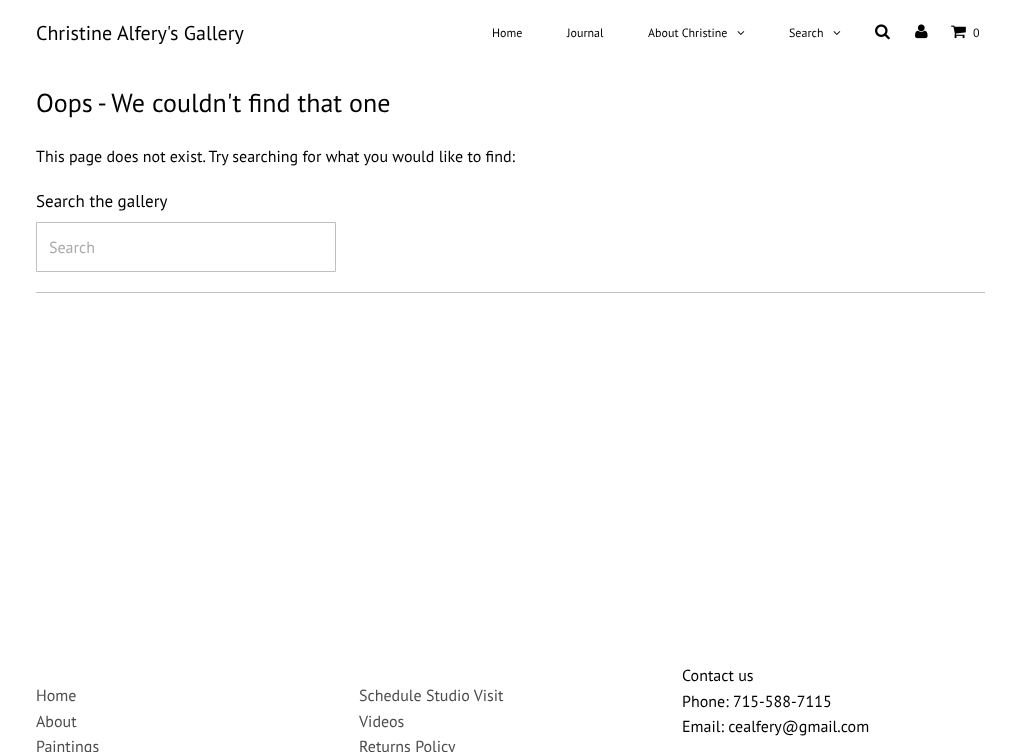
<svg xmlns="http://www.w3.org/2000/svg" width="1021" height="752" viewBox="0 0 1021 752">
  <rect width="100%" height="100%" fill="#fff"/>
  <image x="737" y="31" width="8" height="4" href="img/1.png"/>
  <image x="833" y="31" width="8" height="4" href="img/1.png"/>
  <image x="875" y="24" width="15" height="16" href="img/2.png"/>
  <image x="915" y="24" width="13" height="15" href="img/3.png"/>
  <image x="951" y="25" width="15" height="14" href="img/4.png"/>
  <path d="M36 292h949v1H36z" fill="#c0c0c0"/>
  <path d="M36.5 222.5h299v49H36.5z" fill="none" stroke="#c0c0c0"/>
  <text x="36" y="40" font-family="PT Sans" font-size="20" fill="#000">Christine Alfery's Gallery</text>
  <g font-family="PT Sans" font-size="12" fill="#000">
    <text x="492" y="37">Home</text>
    <text x="567" y="37">Journal</text>
    <text x="648" y="37">About Christine</text>
    <text x="789" y="37">Search</text>
    <text x="973" y="37">0</text>
  </g>
  <text x="36" y="112" font-family="PT Sans" font-size="26" fill="#000">Oops - We couldn't find that one</text>
  <text x="36" y="162" font-family="PT Sans" font-size="16" fill="#000">This page does not exist. Try searching for what you would like to find:</text>
  <text x="36" y="207" font-family="PT Sans" font-size="17" fill="#000">Search the gallery</text>
  <text x="49" y="253" font-family="PT Sans" font-size="16" fill="#aaa">Search</text>
  <g font-family="PT Sans" font-size="16" fill="#4d4d4d">
    <text x="36" y="701">Home</text>
    <text x="36" y="727">About</text>
    <text x="36" y="752">Paintings</text>
    <text x="359" y="701">Schedule Studio Visit</text>
    <text x="359" y="727">Videos</text>
    <text x="359" y="752">Returns Policy</text>
  </g>
  <g font-family="PT Sans" font-size="16" fill="#000">
    <text x="682" y="681">Contact us</text>
    <text x="682" y="707">Phone: 715-588-7115</text>
    <text x="682" y="732">Email: cealfery@gmail.com</text>
  </g>
</svg>
